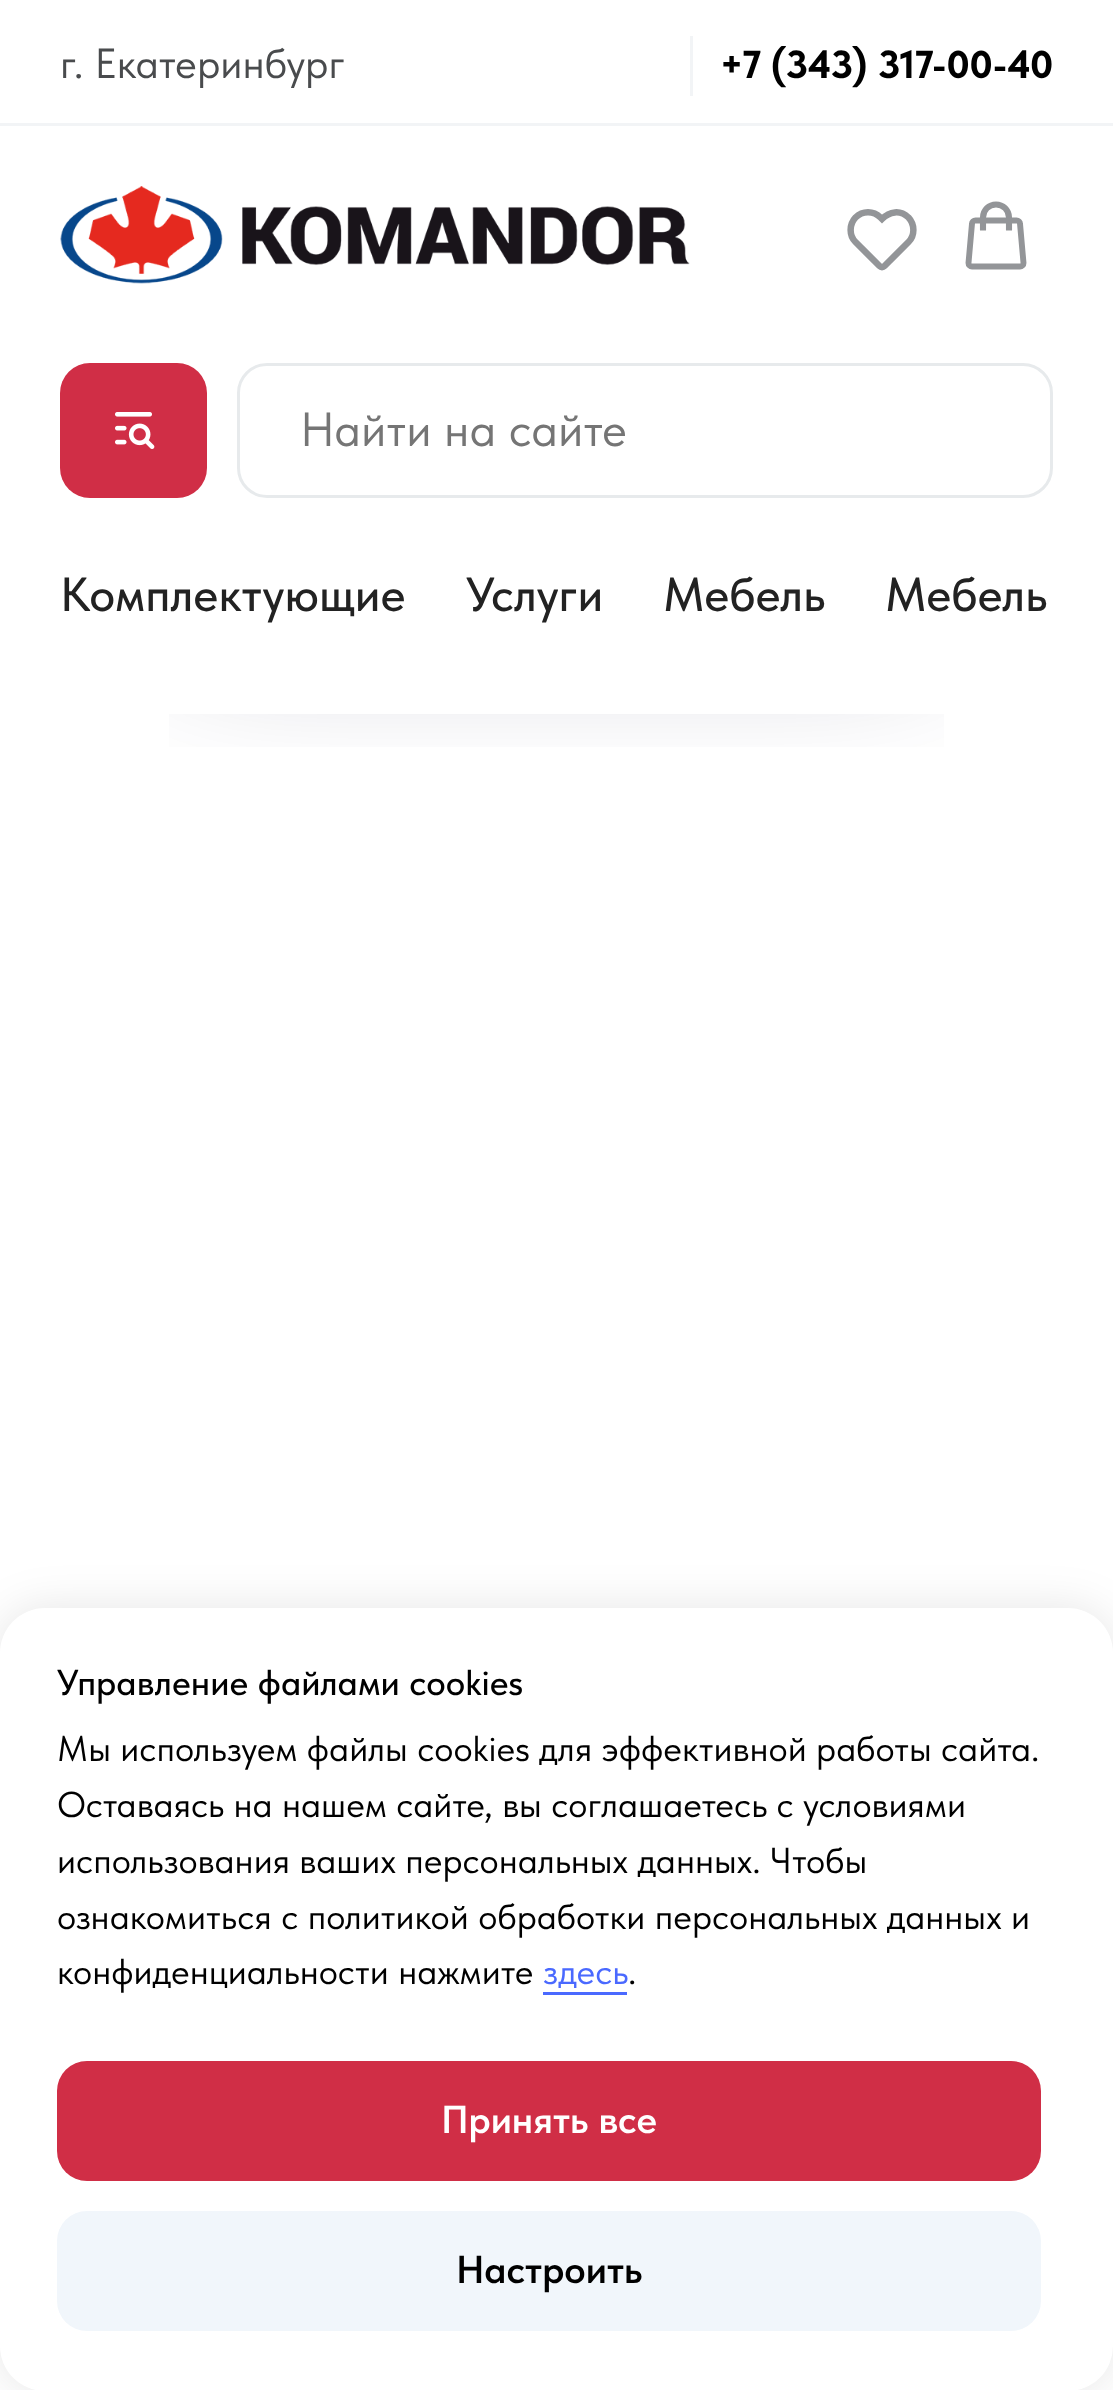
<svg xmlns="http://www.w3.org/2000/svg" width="1113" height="2390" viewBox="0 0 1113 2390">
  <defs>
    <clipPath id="clip1"><path d="M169 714h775v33H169z"/></clipPath>
  </defs>
  <rect width="100%" height="100%" fill="#fff"/>
  <path d="M690 36h3v60H690z" fill="#f2f4f6"/>
  <path d="M0 123h1113v3H0z" fill="#f2f4f6"/>
  <g clip-path="url(#clip1)">
    <path d="M180 396h753v228H180z" fill="#000b3066" filter="blur(75px)"/>
  </g>
  <image x="60" y="186" width="630" height="98" href="img/1.png"/>
  <path d="M908.5 217.5C915 224.5 915 235.5 908.5 242L884.5 266C883 267.5 881 267.5 879.5 266L855.5 242C849 235.5 849 224.5 855.5 217.5C862.5 210.5 873.5 210.5 880.5 217.5L882 219C889.5 211.5 900 209.5 908.5 217.5Z" fill="none" stroke="#939598" stroke-width="6.5" stroke-linecap="round"/>
  <path d="M972 223.5C972 222 973.5 220.5 975.5 220.5H1016.5C1018.5 220.5 1020 222 1020 223.5L1023.5 263C1023.5 265 1022 266.5 1020 266.5H972C970 266.5 968.5 265 968.5 263Z" fill="none" stroke="#939598" stroke-width="5.9"/>
  <path d="M1009 230.5V217.5C1009 210 1003 204.5 996 204.5C989 204.5 983 210 983 217.5V230.5" fill="none" stroke="#939598" stroke-width="6.1"/>
  <rect x="60" y="363" width="147" height="135" rx="30" fill="#d02e46"/>
  <image x="115" y="412" width="40" height="37" href="img/2.png"/>
  <rect x="238.5" y="364.5" width="813" height="132" rx="28.5" fill="none" stroke="#e7eaec" stroke-width="3"/>
  <rect y="1608" width="1113" height="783" rx="45" fill="#0000001a" filter="blur(22.5px)"/>
  <rect y="1608" width="1113" height="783" rx="45" fill="#fff"/>
  <path d="M543 1992h84v3H543z" fill="#4a69ff"/>
  <rect x="57" y="2061" width="984" height="120" rx="30" fill="#d02e46"/>
  <rect x="57" y="2211" width="984" height="120" rx="30" fill="#f1f6fb"/>
  <text x="60" y="78" font-family="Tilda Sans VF" font-size="42" fill="#494b4d">г. Екатеринбург</text>
  <text x="720" y="78" font-family="Tilda Sans VF" font-size="39" font-weight="800" fill="#000">+7 (343) 317-00-40</text>
  <text x="300" y="446" font-family="Tilda Sans VF" font-size="48" fill="#757575">Найти на сайте</text>
  <g font-family="Tilda Sans VF" font-size="48" font-weight="500" fill="#222">
    <text x="60" y="611">Комплектующие</text>
    <text x="466" y="611">Услуги</text>
    <text x="663" y="611">Мебель</text>
    <text x="885" y="611">Мебель</text>
  </g>
  <text x="57" y="1695" font-family="Tilda Sans VF" font-size="36" font-weight="500" fill="#000">Управление файлами cookies</text>
  <g font-family="Tilda Sans VF" font-size="36" fill="#000">
    <text x="57" y="1761">Мы используем файлы cookies для эффективной работы сайта.</text>
    <text x="57" y="1817">Оставаясь на нашем сайте, вы соглашаетесь с условиями</text>
    <text x="57" y="1873">использования ваших персональных данных. Чтобы</text>
    <text x="57" y="1929">ознакомиться с политикой обработки персональных данных и</text>
    <text x="57" y="1984">конфиденциальности нажмите</text>
  </g>
  <text x="543" y="1984" font-family="Tilda Sans VF" font-size="36" fill="#4a69ff">здесь</text>
  <text x="628" y="1984" font-family="Tilda Sans VF" font-size="36" fill="#000">.</text>
  <text x="441" y="2133" font-family="Tilda Sans VF" font-size="39" font-weight="600" fill="#fff">Принять все</text>
  <text x="456" y="2283" font-family="Tilda Sans VF" font-size="39" font-weight="600" fill="#000">Настроить</text>
</svg>
